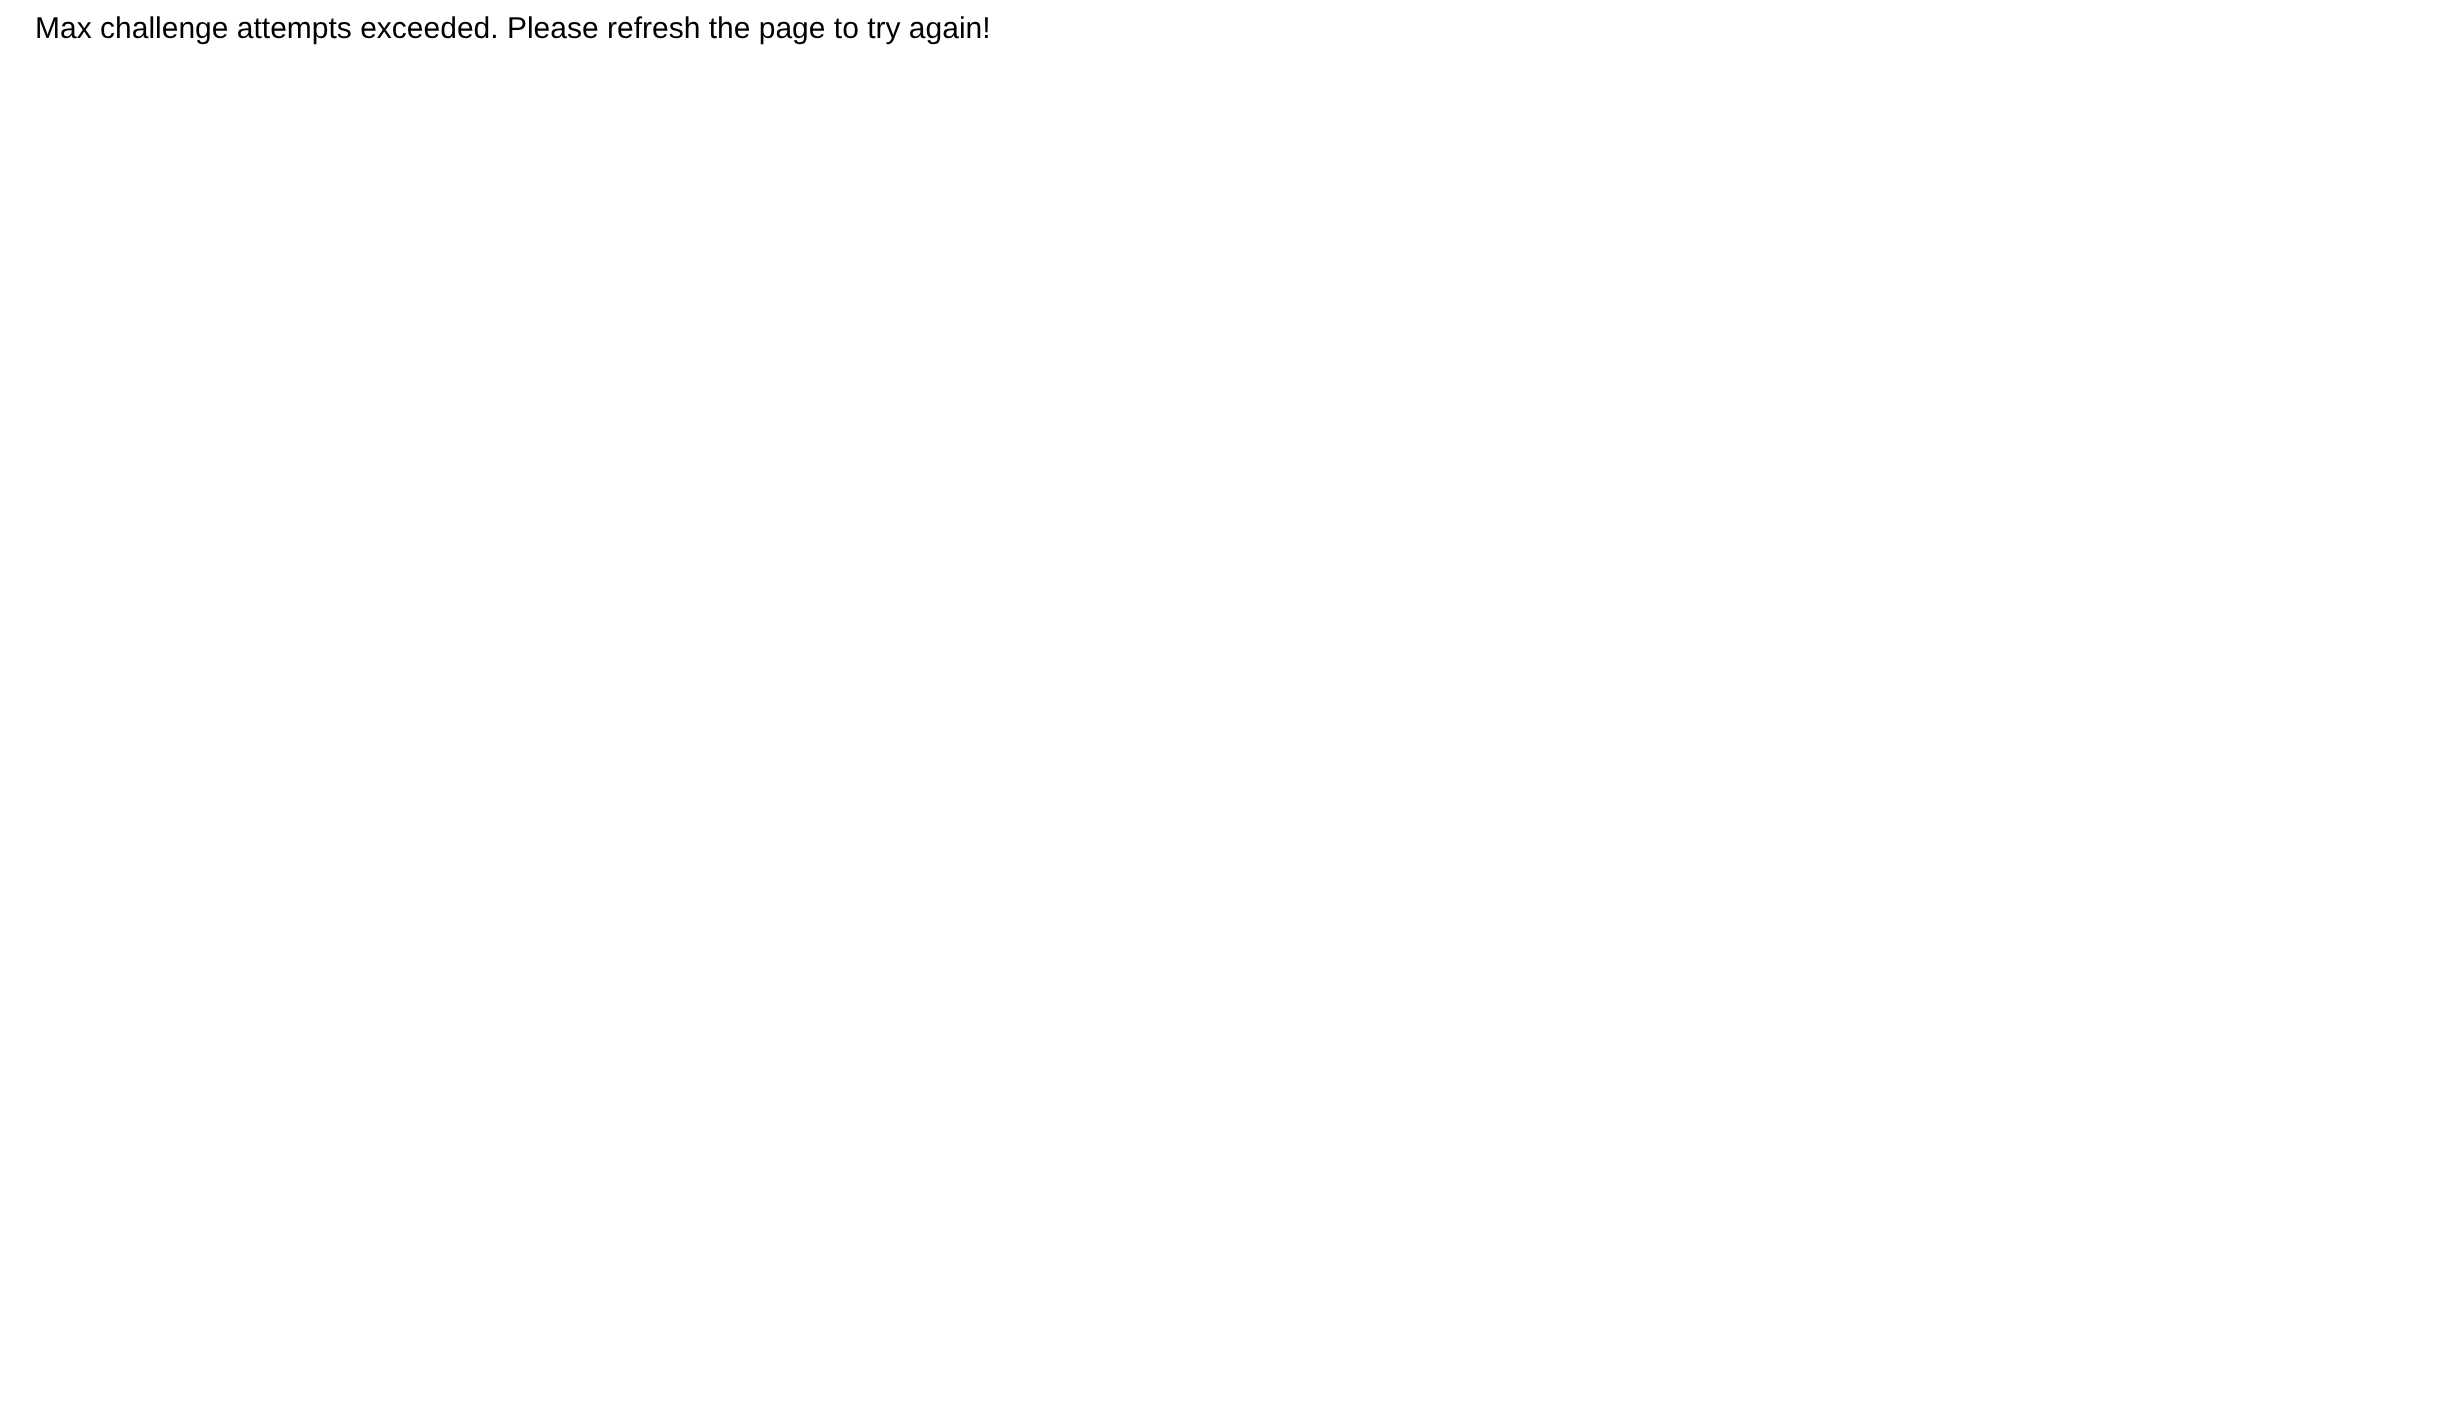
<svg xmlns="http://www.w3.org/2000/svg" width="2443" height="1402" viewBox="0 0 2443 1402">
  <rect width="100%" height="100%" fill="#fff"/>
  <text x="35" y="38" font-family="Liberation Sans" font-size="30" fill="#000">Max challenge attempts exceeded. Please refresh the page to try again!</text>
</svg>
